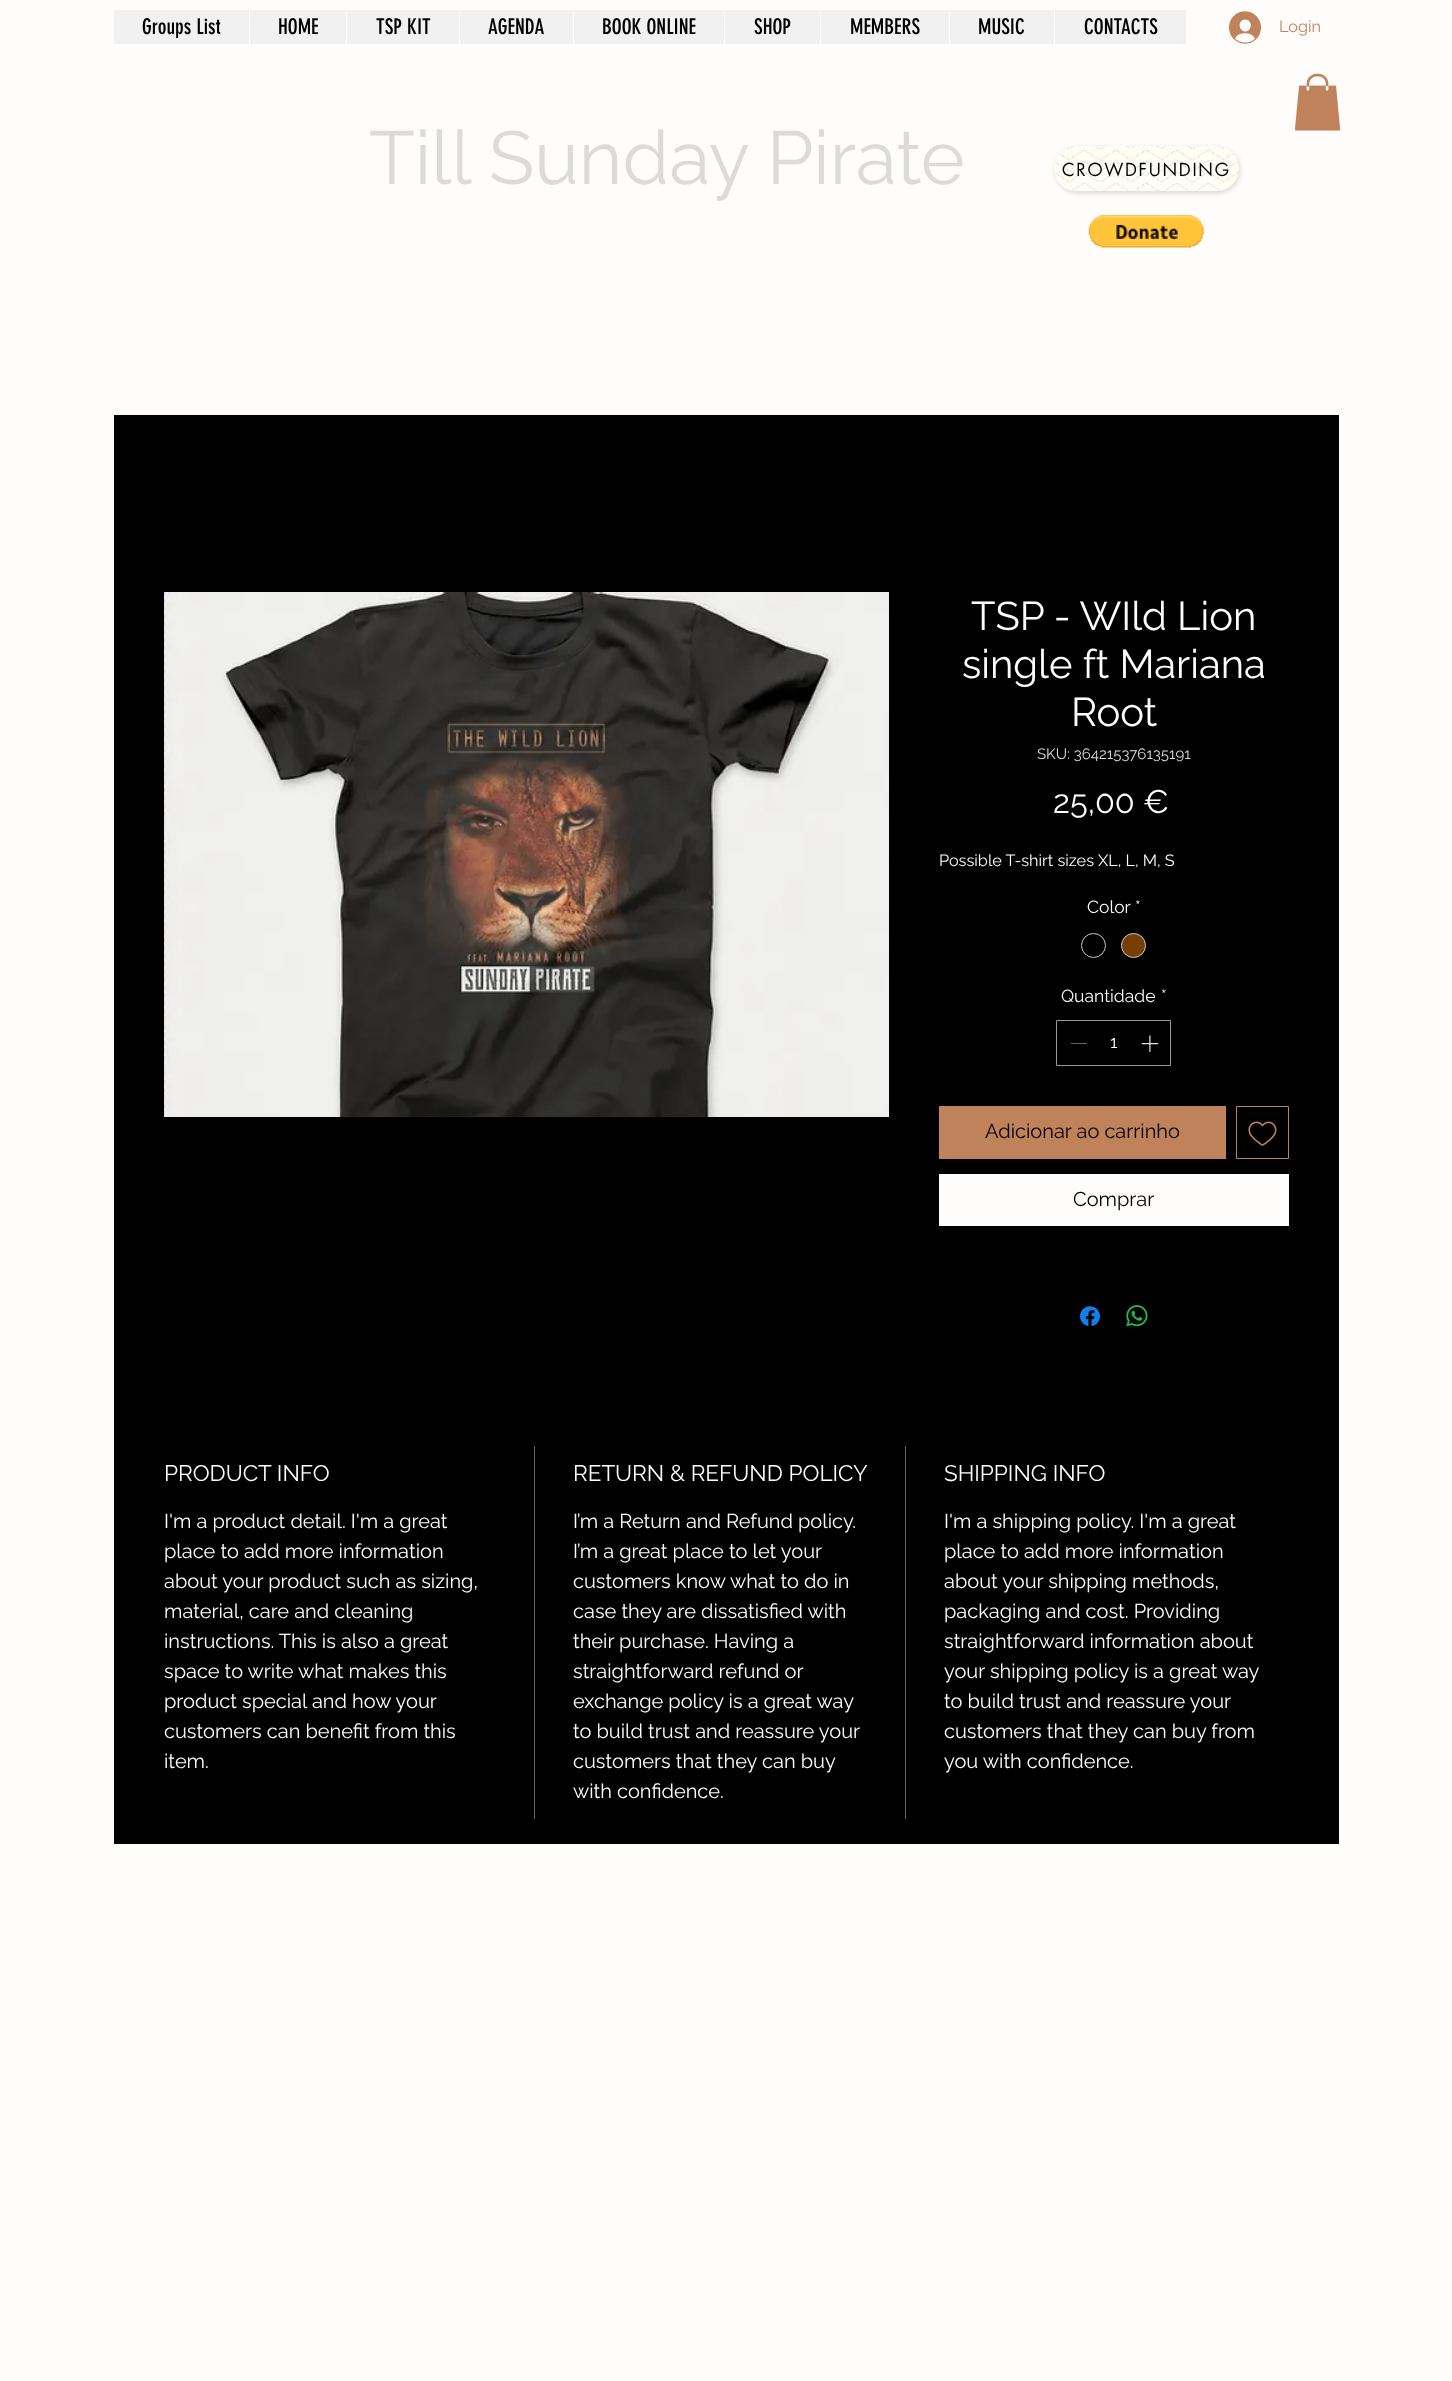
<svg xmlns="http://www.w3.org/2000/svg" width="1452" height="2381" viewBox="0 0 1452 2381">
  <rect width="100%" height="100%" fill="#fffcfc"/>
  <path d="M114 10h1072v34H114z" fill="#f1f1f1"/>
  <path d="M249 10h1v34H249z" fill="#fff"/>
  <path d="M346 10h1v34H346z" fill="#fff"/>
  <path d="M459 10h1v34H459z" fill="#fff"/>
  <path d="M573 10h1v34H573z" fill="#fff"/>
  <path d="M724 10h1v34H724z" fill="#fff"/>
  <path d="M820 10h1v34H820z" fill="#fff"/>
  <path d="M949 10h1v34H949z" fill="#fff"/>
  <path d="M1054 10h1v34H1054z" fill="#fff"/>
  <image x="1229" y="11" width="32" height="33" href="img/1.png"/>
  <image x="1294" y="73" width="47" height="58" href="img/2.png"/>
  <rect x="1055" y="148" width="185" height="45" rx="22.5" fill="#00000026" filter="blur(2.5px)"/>
  <rect x="1054" y="146" width="185" height="45" rx="22.5" fill="#fffdf4"/>
  <image x="1054" y="146" width="185" height="46" href="img/3.png"/>
  <image x="1088" y="215" width="116" height="33" href="img/4.png"/>
  <path d="M114 415h1225v1429H114z" fill="#000"/>
  <image x="164" y="592" width="725" height="525" href="img/5.png"/>
  <circle cx="1093.5" cy="945.5" r="12" fill="none" stroke="#c9c9c9"/>
  <circle cx="1133.5" cy="945.5" r="12" fill="#783f04" stroke="#c9c9c9"/>
  <path d="M1056.5 1020.5h114v45H1056.5z" fill="none" stroke="#999797"/>
  <path d="M1071 1043h16v1H1071z" fill="#646464"/>
  <image x="1141" y="1035" width="18" height="17" href="img/6.png"/>
  <path d="M939 1106h287v53H939z" fill="#bf825a"/>
  <path d="M1236.5 1106.5h52v52H1236.5z" fill="none" stroke="#bf825a"/>
  <image x="1248" y="1121" width="29" height="25" href="img/7.png"/>
  <path d="M939 1174h350v52H939z" fill="#fffcfc"/>
  <image x="1080" y="1306" width="20" height="21" href="img/8.png"/>
  <image x="1126" y="1305" width="22" height="22" href="img/9.png"/>
  <path d="M534 1446h1v373H534z" fill="#666"/>
  <path d="M905 1446h1v373H905z" fill="#666"/>
  <g font-family="'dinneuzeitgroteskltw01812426'" font-size="21.25" fill="#000">
    <text x="142" y="34">Groups List</text>
    <text x="278" y="34">HOME</text>
    <text x="376" y="34">TSP KIT</text>
    <text x="488" y="34">AGENDA</text>
    <text x="602" y="34">BOOK ONLINE</text>
    <text x="754" y="34">SHOP</text>
    <text x="850" y="34">MEMBERS</text>
    <text x="978" y="34">MUSIC</text>
    <text x="1084" y="34">CONTACTS</text>
  </g>
  <text x="1279" y="32" font-family="Raleway" font-size="16.25" fill="#bf825a">Login</text>
  <text x="369" y="184" font-family="Raleway" font-size="75" fill="#dbdbdb">Till Sunday Pirate</text>
  <text x="1062" y="176" font-family="futura" font-size="17.5" letter-spacing="1.75" fill="#000">CROWDFUNDING</text>
  <g font-family="Raleway" font-size="40" fill="#fffcfc">
    <text x="971" y="630">TSP - WIld Lion</text>
    <text x="962" y="678">single ft Mariana</text>
    <text x="1071" y="726">Root</text>
  </g>
  <text x="1037" y="759" font-family="Raleway" font-size="15" fill="#dbdbdb">SKU: 364215376135191</text>
  <text x="1053" y="813" font-family="Raleway" font-size="32.5" fill="#fffcfc">25,00 €</text>
  <text x="939" y="866" font-family="Raleway" font-size="16.25" fill="#fffcfc">Possible T-shirt sizes XL, L, M, S</text>
  <g font-family="Raleway" font-size="17.5" fill="#fffcfc">
    <text x="1087" y="913">Color</text>
    <text x="1135" y="913">*</text>
    <text x="1061" y="1002">Quantidade</text>
    <text x="1161" y="1002">*</text>
    <text x="1110" y="1048">1</text>
  </g>
  <g font-family="Raleway" font-size="20" fill="#000">
    <text x="985" y="1138">Adicionar ao carrinho</text>
    <text x="1073" y="1206">Comprar</text>
  </g>
  <text x="164" y="1481" font-family="Raleway" font-size="22.5" fill="#fffcfc">PRODUCT INFO</text>
  <g font-family="Raleway" font-size="20" fill="#fffcfc">
    <text x="164" y="1528">I'm a product detail. I'm a great</text>
    <text x="164" y="1558">place to add more information</text>
    <text x="164" y="1588">about your product such as sizing,</text>
    <text x="164" y="1618">material, care and cleaning</text>
    <text x="164" y="1648">instructions. This is also a great</text>
    <text x="164" y="1678">space to write what makes this</text>
    <text x="164" y="1708">product special and how your</text>
    <text x="164" y="1738">customers can benefit from this</text>
    <text x="164" y="1768">item.</text>
  </g>
  <text x="573" y="1481" font-family="Raleway" font-size="22.5" fill="#fffcfc">RETURN &amp; REFUND POLICY</text>
  <g font-family="Raleway" font-size="20" fill="#fffcfc">
    <text x="573" y="1528">I’m a Return and Refund policy.</text>
    <text x="573" y="1558">I’m a great place to let your</text>
    <text x="573" y="1588">customers know what to do in</text>
    <text x="573" y="1618">case they are dissatisfied with</text>
    <text x="573" y="1648">their purchase. Having a</text>
    <text x="573" y="1678">straightforward refund or</text>
    <text x="573" y="1708">exchange policy is a great way</text>
    <text x="573" y="1738">to build trust and reassure your</text>
    <text x="573" y="1768">customers that they can buy</text>
    <text x="573" y="1798">with confidence.</text>
  </g>
  <text x="944" y="1481" font-family="Raleway" font-size="22.5" fill="#fffcfc">SHIPPING INFO</text>
  <g font-family="Raleway" font-size="20" fill="#fffcfc">
    <text x="944" y="1528">I'm a shipping policy. I'm a great</text>
    <text x="944" y="1558">place to add more information</text>
    <text x="944" y="1588">about your shipping methods,</text>
    <text x="944" y="1618">packaging and cost. Providing</text>
    <text x="944" y="1648">straightforward information about</text>
    <text x="944" y="1678">your shipping policy is a great way</text>
    <text x="944" y="1708">to build trust and reassure your</text>
    <text x="944" y="1738">customers that they can buy from</text>
    <text x="944" y="1768">you with confidence.</text>
  </g>
</svg>
